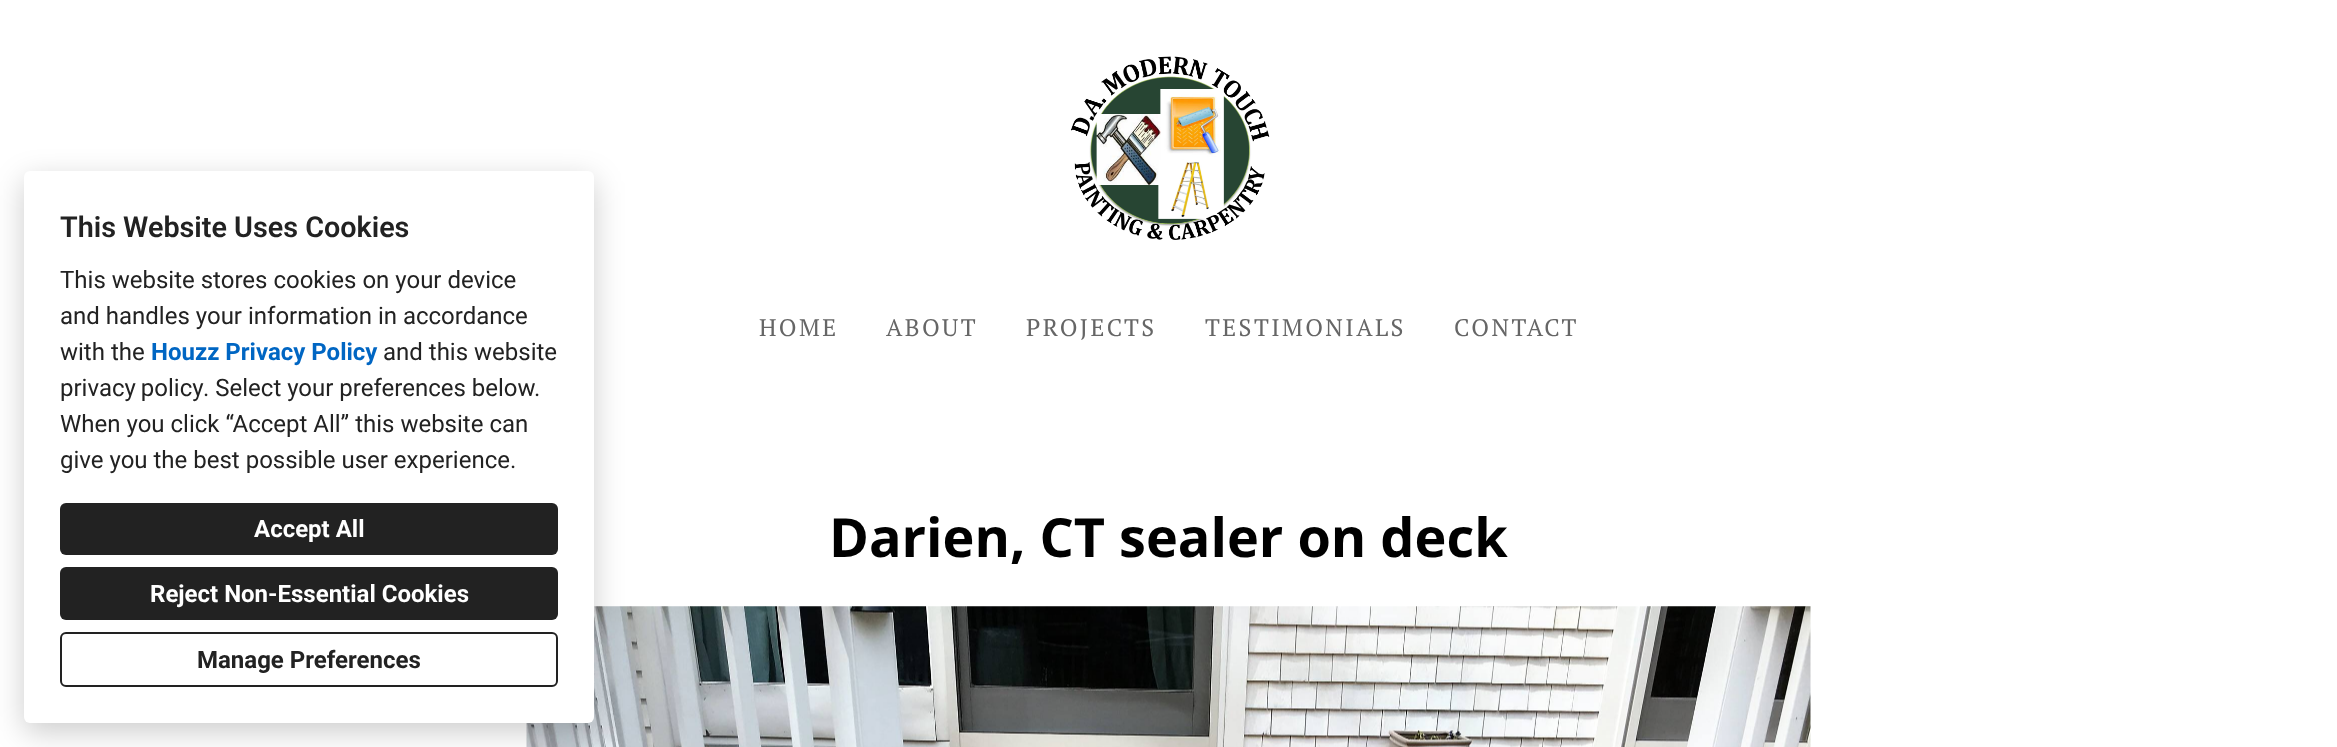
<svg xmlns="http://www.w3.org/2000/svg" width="2337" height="747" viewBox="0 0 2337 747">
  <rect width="100%" height="100%" fill="#fff"/>
  <image x="526" y="606" width="1285" height="141" href="img/2.png"/>
  <rect x="24" y="180" width="570" height="552" rx="6" fill="#00000033" filter="blur(15px)"/>
  <rect x="24" y="171" width="570" height="552" rx="6" fill="#fff"/>
  <rect x="60" y="503" width="498" height="52" rx="6" fill="#222"/>
  <rect x="60" y="567" width="498" height="53" rx="6" fill="#222"/>
  <rect x="61" y="633" width="496" height="53" rx="5" fill="none" stroke="#222" stroke-width="2"/>
  <image x="1071" y="56" width="199" height="184" href="img/1.png"/>
  <text x="60" y="237" font-family="Roboto" font-size="28.75" font-weight="600" fill="#222">This Website Uses Cookies</text>
  <g font-family="Roboto" font-size="24" fill="#222">
    <text x="60" y="288">This website stores cookies on your device</text>
    <text x="60" y="324">and handles your information in accordance</text>
    <text x="60" y="360">with the</text>
  </g>
  <text x="151" y="360" font-family="Roboto" font-size="24" font-weight="bold" fill="#0066c3">Houzz Privacy Policy</text>
  <g font-family="Roboto" font-size="24" fill="#222">
    <text x="383" y="360">and this website</text>
    <text x="60" y="396" word-spacing="-1">privacy policy</text>
    <text x="203" y="396">. Select your preferences below.</text>
    <text x="60" y="432">When you click “Accept All” this website can</text>
    <text x="60" y="468">give you the best possible user experience.</text>
  </g>
  <g font-family="Roboto" font-size="24" font-weight="bold" fill="#fff">
    <text x="254" y="537">Accept All</text>
    <text x="150" y="602">Reject Non-Essential Cookies</text>
  </g>
  <text x="197" y="668" font-family="Roboto" font-size="24" font-weight="bold" fill="#222">Manage Preferences</text>
  <g font-family="PT Serif" font-size="24" letter-spacing="2.4" fill="#666">
    <text x="759" y="336">HOME</text>
    <text x="886" y="336">ABOUT</text>
    <text x="1026" y="336">PROJECTS</text>
    <text x="1205" y="336">TESTIMONIALS</text>
    <text x="1454" y="336">CONTACT</text>
  </g>
  <text x="829" y="557" font-family="Open Sans" font-size="54" font-weight="bold" fill="#000">Darien, CT sealer on deck</text>
</svg>
